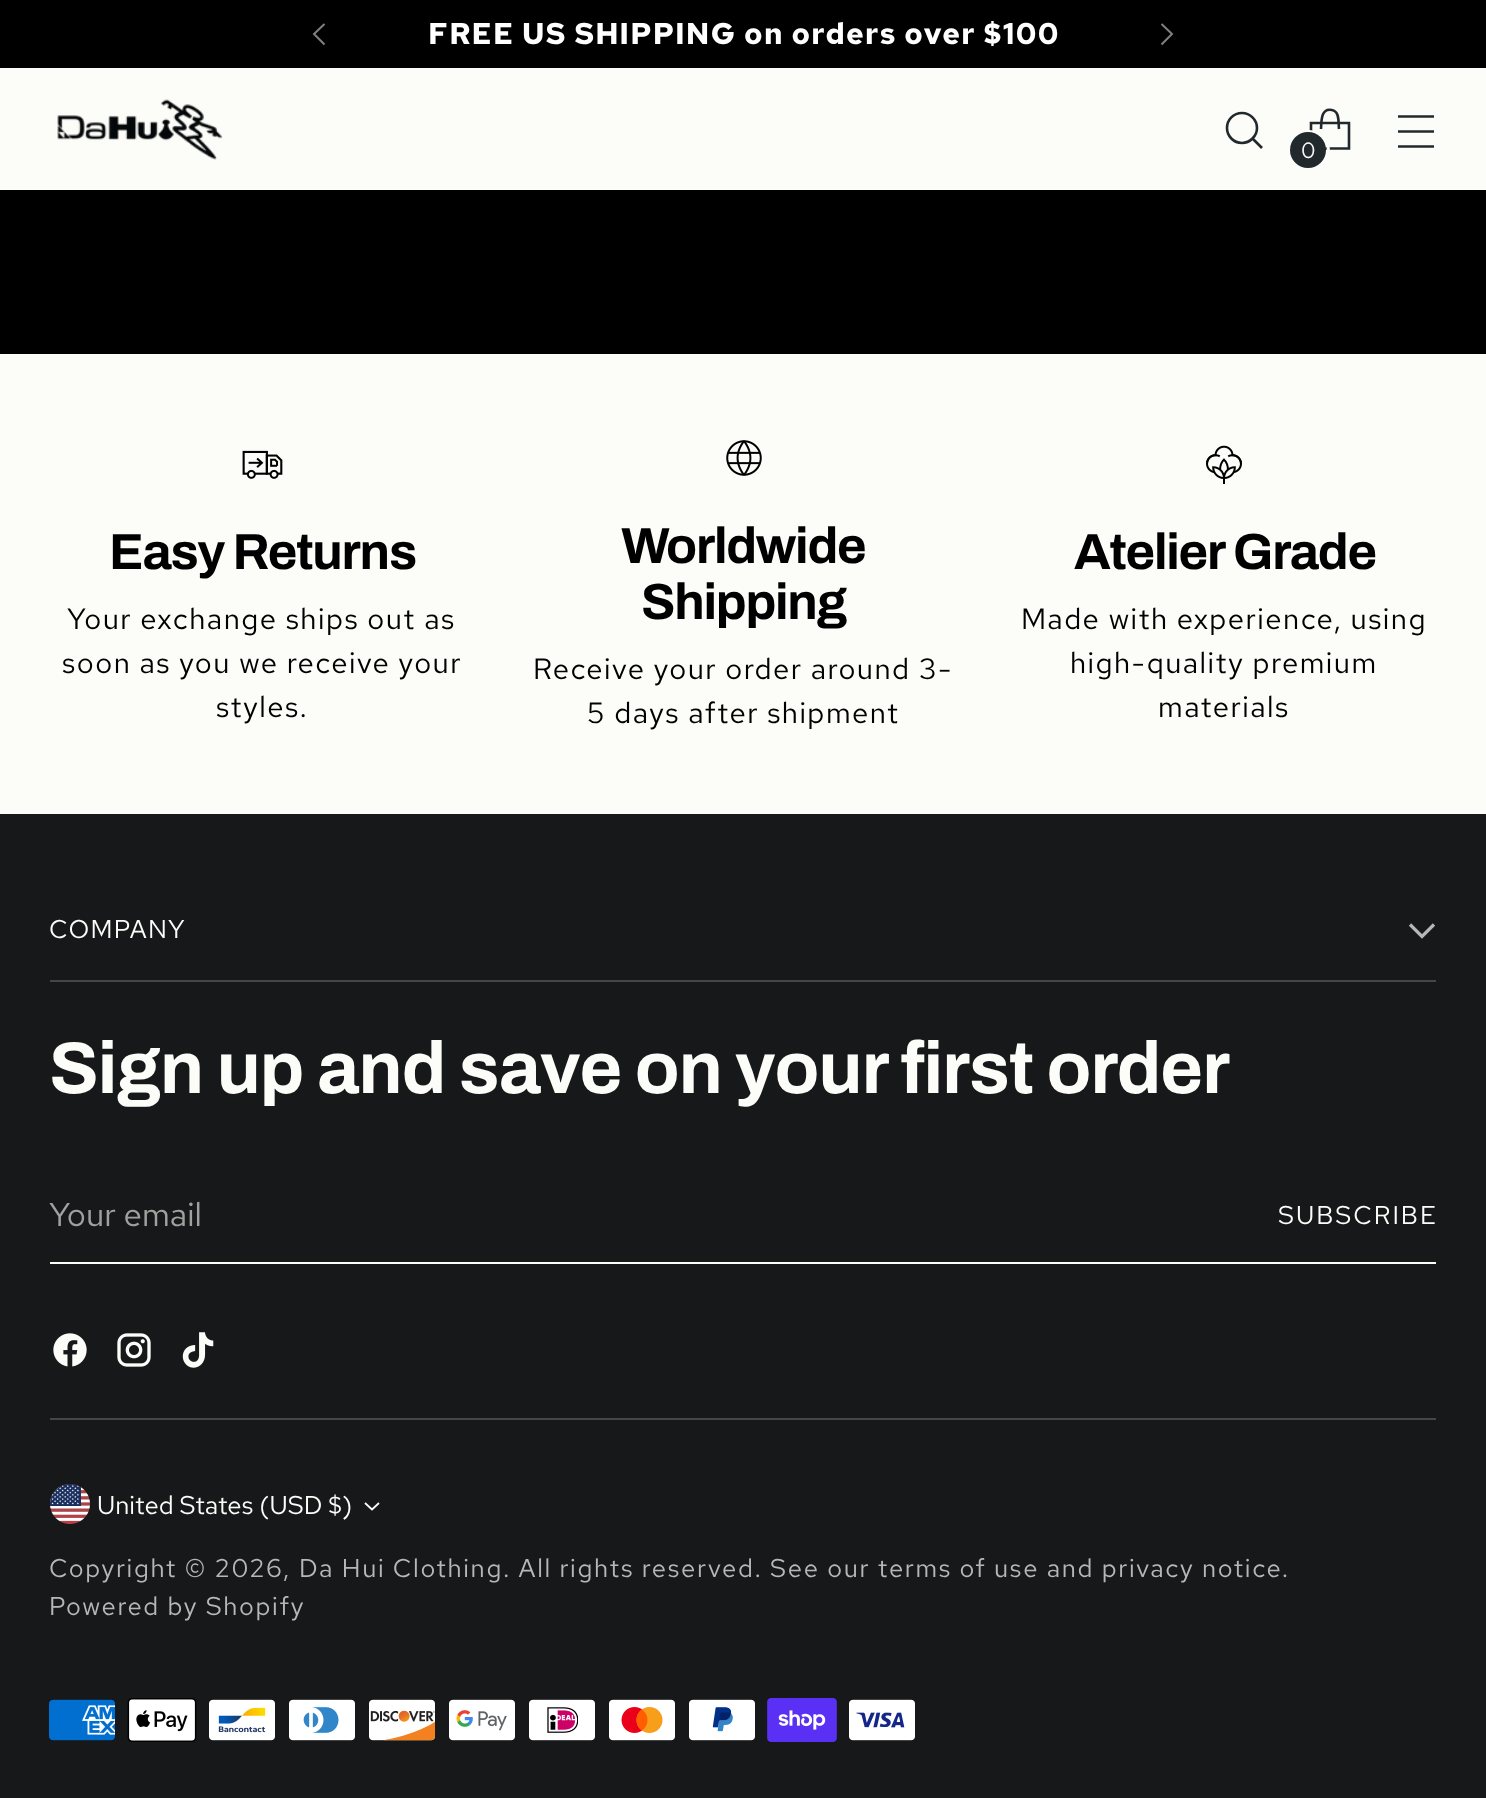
<svg xmlns="http://www.w3.org/2000/svg" width="1486" height="1798" viewBox="0 0 1486 1798">
  <rect width="100%" height="100%" fill="#000"/>
  <path d="M324.5 24L314 34L324.5 44.5" fill="none" stroke="#808080" stroke-width="2"/>
  <path d="M1161.5 44.5L1172 34L1161.5 24" fill="none" stroke="#808080" stroke-width="2"/>
  <path d="M0 68h1486v122H0z" fill="#fcfcf9"/>
  <image x="57" y="99" width="166" height="61" href="img/1.png"/>
  <path d="M1242 143C1250 143 1257 136 1257 128C1257 119.5 1250 113 1242 113C1233.5 113 1227 119.5 1227 128C1227 136 1233.5 143 1242 143Z" fill="none" stroke="#22292d" stroke-width="2.6" stroke-linecap="round"/>
  <path d="M1252.5 138.5L1262 148" fill="none" stroke="#22292d" stroke-width="2.6"/>
  <path d="M1398 131.5H1434M1398 116.5H1434M1398 146.5H1434" fill="none" stroke="#22292d" stroke-width="2.6"/>
  <path d="M1339 129C1338.5 124.5 1339 119.5 1337.5 115C1336.5 112.5 1334.5 110.5 1332 110C1320.5 107.5 1321.5 122 1321 129" fill="none" stroke="#22292d" stroke-width="2.6" stroke-linejoin="bevel"/>
  <path d="M1349 148.5V123H1311V148.5Z" fill="none" stroke="#22292d" stroke-width="2.6"/>
  <circle cx="1309" cy="151" r="19.5" fill="none" stroke="#fcfcf9" stroke-width="3"/>
  <circle cx="1308" cy="150" r="18" fill="#22292d"/>
  <path d="M0 354h1486v460H0z" fill="#fcfcf9"/>
  <image x="242" y="450" width="41" height="29" href="img/2.png"/>
  <image x="726" y="440" width="36" height="36" href="img/3.png"/>
  <image x="1206" y="445" width="36" height="39" href="img/4.png"/>
  <path d="M0 814h1486v984H0z" fill="#171819"/>
  <path d="M50 980h1386v2H50z" fill="#454646"/>
  <path d="M1410 924.5L1422 936.5L1434 924.5" fill="none" stroke="#b7b8b6" stroke-width="3.2"/>
  <path d="M50 1418h1386v2H50z" fill="#454646"/>
  <path d="M50 1262h1386v2H50z" fill="#fcfcf9"/>
  <image x="53" y="1333" width="34" height="34" href="img/5.png"/>
  <image x="117" y="1333" width="34" height="34" href="img/6.png"/>
  <image x="182" y="1332" width="32" height="36" href="img/7.png"/>
  <image x="50" y="1484" width="40" height="40" href="img/8.png"/>
  <path d="M365 1503L372 1509.5L379 1503" fill="none" stroke="#fcfcf9" stroke-width="1.8"/>
  <image x="49" y="1699" width="66" height="42" href="img/9.png"/>
  <image x="127" y="1698" width="70" height="44" href="img/10.png"/>
  <image x="209" y="1699" width="66" height="42" href="img/11.png"/>
  <image x="289" y="1699" width="66" height="42" href="img/12.png"/>
  <image x="369" y="1699" width="67" height="42" href="img/13.png"/>
  <image x="449" y="1699" width="66" height="42" href="img/14.png"/>
  <image x="529" y="1699" width="66" height="42" href="img/15.png"/>
  <image x="609" y="1699" width="66" height="42" href="img/16.png"/>
  <image x="689" y="1699" width="66" height="42" href="img/17.png"/>
  <image x="767" y="1698" width="70" height="44" href="img/18.png"/>
  <image x="849" y="1699" width="66" height="42" href="img/19.png"/>
  <text x="428" y="44" font-family="Red Hat Text" font-size="30" font-weight="bold" letter-spacing="1.3" fill="#fff">FREE US SHIPPING on orders over $100</text>
  <text x="1301" y="158" font-family="Red Hat Text" font-size="22" letter-spacing="1.65" fill="#fcfcf9">0</text>
  <text x="109" y="569" font-family="Archivo" font-size="50.75" font-weight="bold" letter-spacing="-1.25" fill="#000">Easy Returns</text>
  <g font-family="Red Hat Text" font-size="29.25" letter-spacing="1.45" fill="#000">
    <text x="67" y="629">Your exchange ships out as</text>
    <text x="62" y="673">soon as you we receive your</text>
    <text x="216" y="717">styles.</text>
  </g>
  <g font-family="Archivo" font-size="50.75" font-weight="bold" letter-spacing="-1.25" fill="#000">
    <text x="621" y="563">Worldwide</text>
    <text x="641" y="619">Shipping</text>
  </g>
  <g font-family="Red Hat Text" font-size="29.25" letter-spacing="1.45" fill="#000">
    <text x="533" y="679">Receive your order around</text>
    <text x="919" y="679">3-</text>
    <text x="587" y="723">5 days after shipment</text>
  </g>
  <text x="1074" y="569" font-family="Archivo" font-size="50.75" font-weight="bold" letter-spacing="-1.25" fill="#000">Atelier Grade</text>
  <g font-family="Red Hat Text" font-size="29.25" letter-spacing="1.45" fill="#000">
    <text x="1021" y="629">Made with experience, using</text>
    <text x="1070" y="673">high-quality premium</text>
    <text x="1158" y="717">materials</text>
  </g>
  <text x="49" y="938" font-family="Red Hat Text" font-size="25.6" letter-spacing="1.3" fill="#fcfcf9">COMPANY</text>
  <text x="49" y="1093" font-family="Archivo" font-size="73.25" font-weight="bold" letter-spacing="-0.9" fill="#fcfcf9">Sign up and save on your first order</text>
  <text x="49" y="1226" font-family="Red Hat Text" font-size="33" fill="#a0a19f">Your email</text>
  <text x="1278" y="1224" font-family="Red Hat Text" font-size="25.6" letter-spacing="2" fill="#fcfcf9">SUBSCRIBE</text>
  <g font-family="Red Hat Text" font-size="25.6" fill="#fcfcf9">
    <text x="97" y="1514">United States (USD</text>
    <text x="328" y="1514">$)</text>
  </g>
  <g font-family="Red Hat Text" font-size="25.6" letter-spacing="1.65" fill="#b7b8b6">
    <text x="49" y="1577">Copyright © 2026,</text>
    <text x="299" y="1577">Da Hui Clothing. All rights reserved.</text>
    <text x="770" y="1577">See our terms of use and privacy notice.</text>
    <text x="49" y="1615">Powered by Shopify</text>
  </g>
</svg>
